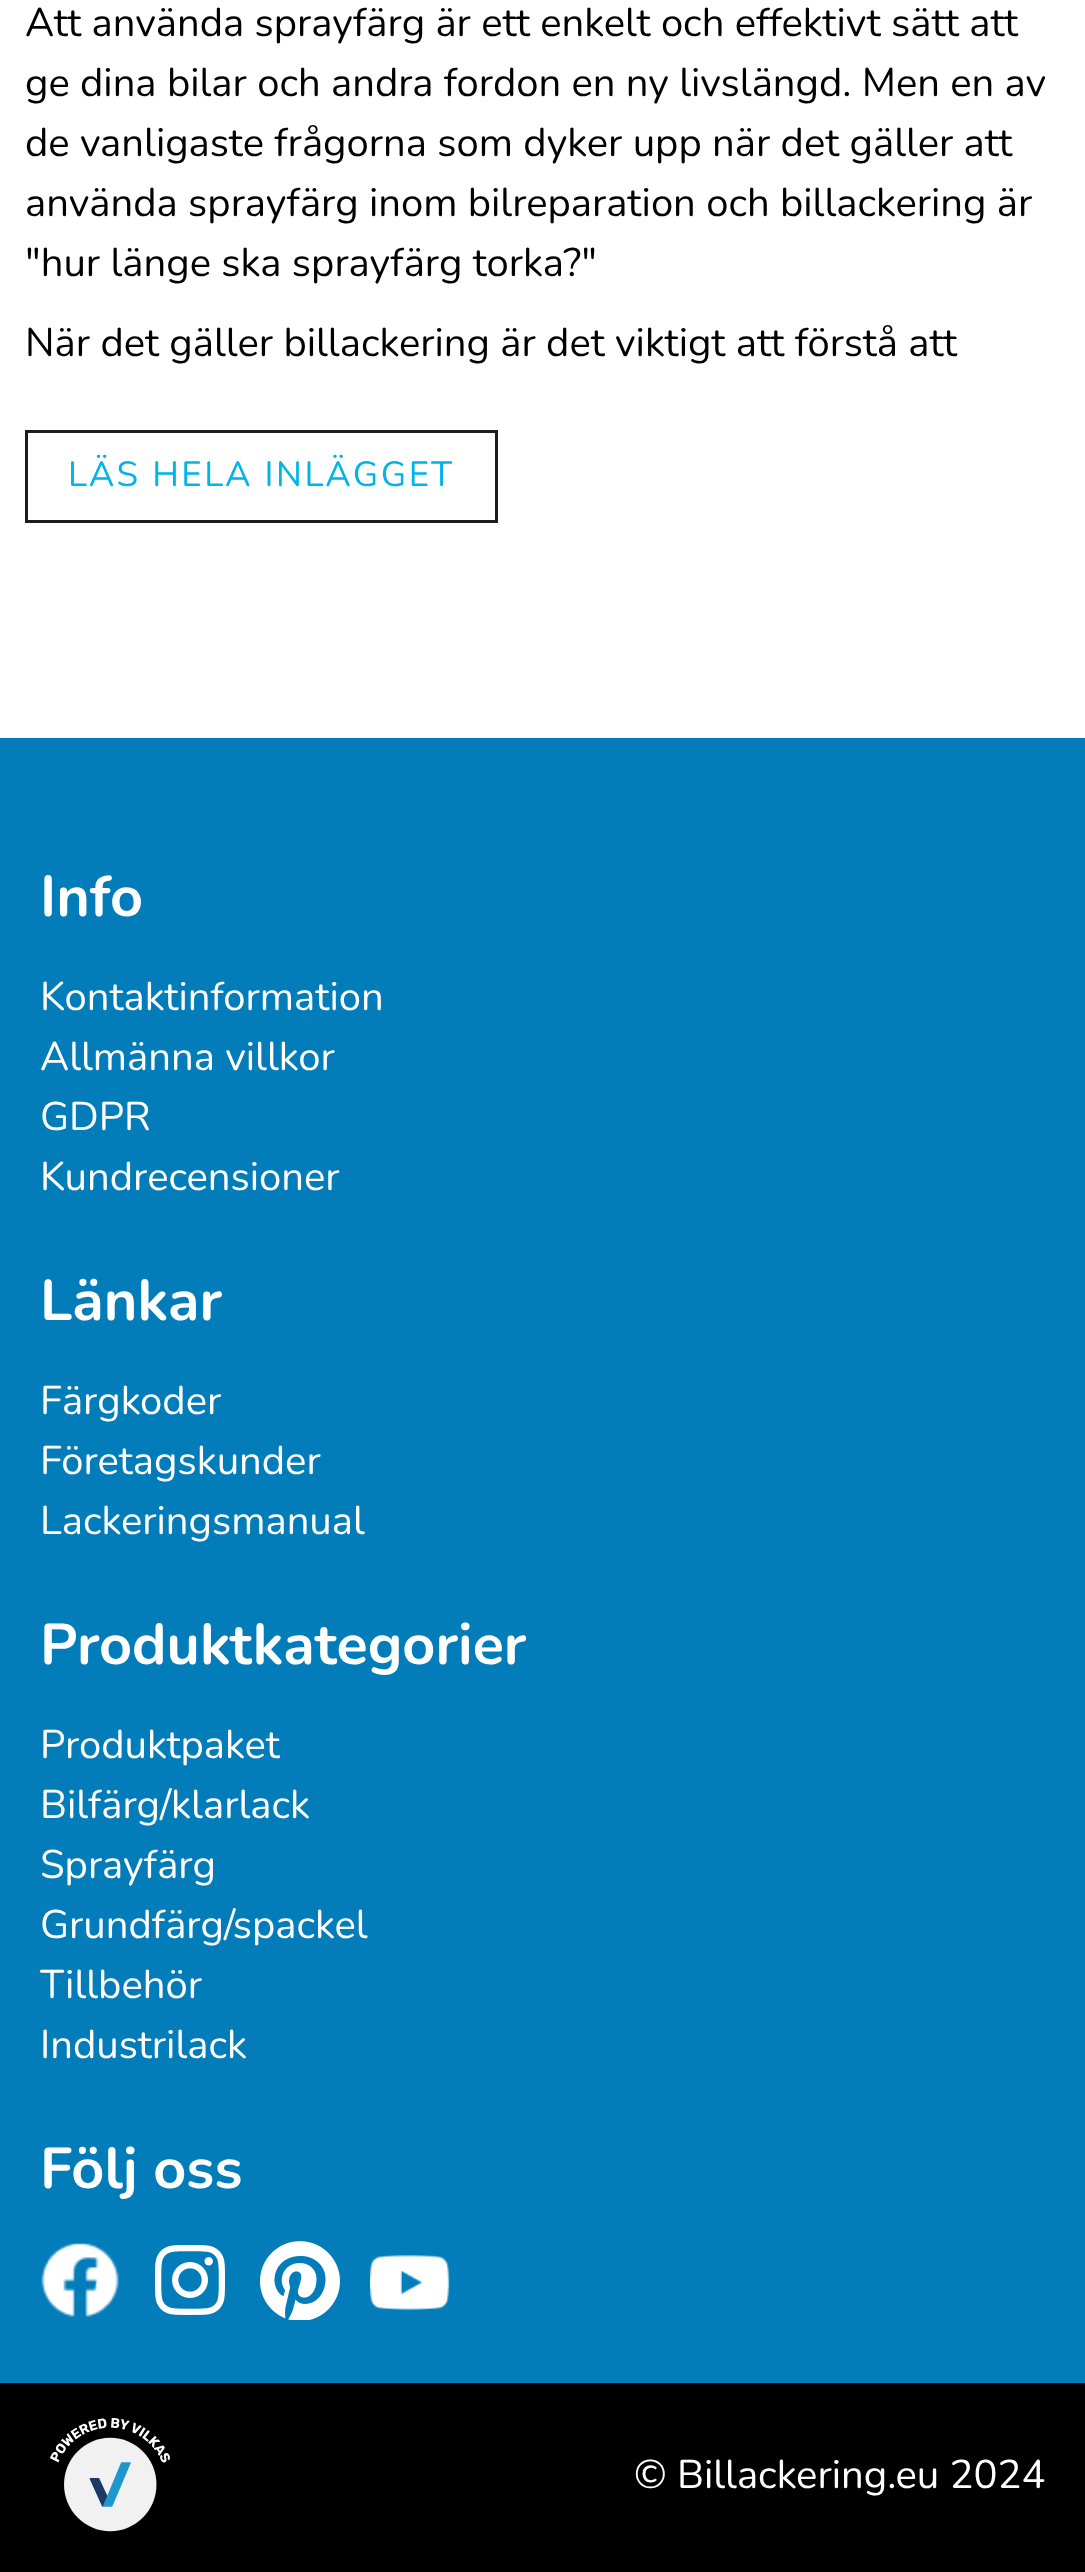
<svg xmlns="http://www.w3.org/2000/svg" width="1085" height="2572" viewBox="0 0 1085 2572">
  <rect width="100%" height="100%" fill="#fff"/>
  <path d="M26.5 431.5h470v90H26.5z" fill="none" stroke="#1d1d1d" stroke-width="3"/>
  <path d="M0 738h1085v1645H0z" fill="#027dba"/>
  <image x="41" y="2243" width="78" height="74" href="img/1.png"/>
  <image x="155" y="2245" width="70" height="70" href="img/2.png"/>
  <image x="260" y="2241" width="80" height="79" href="img/3.png"/>
  <image x="370" y="2255" width="80" height="55" href="img/4.png"/>
  <path d="M0 2383h1085v189H0z" fill="#000"/>
  <image x="50" y="2418" width="120" height="114" href="img/5.png"/>
  <g font-family="Nunito" font-size="40" fill="#000">
    <text x="25" y="36">Att använda sprayfärg är ett enkelt och effektivt sätt att</text>
    <text x="25" y="96">ge dina bilar och andra fordon en ny livslängd. Men en av</text>
    <text x="25" y="156">de vanligaste frågorna som dyker upp när det gäller att</text>
    <text x="25" y="216">använda sprayfärg inom bilreparation och billackering är</text>
    <text x="25" y="276">"hur länge ska sprayfärg torka?"</text>
    <text x="25" y="356">När det gäller billackering är det viktigt att förstå att</text>
  </g>
  <text x="68" y="486" font-family="Nunito" font-size="35" letter-spacing="2.5" fill="#00b4e9">LÄS HELA INLÄGGET</text>
  <text x="40" y="916" font-family="Nunito" font-size="57.5" font-weight="bold" fill="#fff">Info</text>
  <g font-family="Nunito" font-size="40" fill="#fff">
    <text x="40" y="1010">Kontaktinformation</text>
    <text x="40" y="1070">Allmänna villkor</text>
    <text x="40" y="1130">GDPR</text>
    <text x="40" y="1190">Kundrecensioner</text>
  </g>
  <text x="40" y="1320" font-family="Nunito" font-size="57.5" font-weight="bold" fill="#fff">Länkar</text>
  <g font-family="Nunito" font-size="40" fill="#fff">
    <text x="40" y="1414">Färgkoder</text>
    <text x="40" y="1474">Företagskunder</text>
    <text x="40" y="1534">Lackeringsmanual</text>
  </g>
  <text x="40" y="1664" font-family="Nunito" font-size="57.5" font-weight="bold" fill="#fff">Produktkategorier</text>
  <g font-family="Nunito" font-size="40" fill="#fff">
    <text x="40" y="1758">Produktpaket</text>
    <text x="40" y="1818">Bilfärg/klarlack</text>
    <text x="40" y="1878">Sprayfärg</text>
    <text x="40" y="1938">Grundfärg/spackel</text>
    <text x="40" y="1998">Tillbehör</text>
    <text x="40" y="2058">Industrilack</text>
  </g>
  <text x="40" y="2188" font-family="Nunito" font-size="57.5" font-weight="bold" fill="#fff">Följ oss</text>
  <text x="634" y="2488" font-family="Nunito" font-size="40" fill="#fff">© Billackering.eu 2024</text>
</svg>
